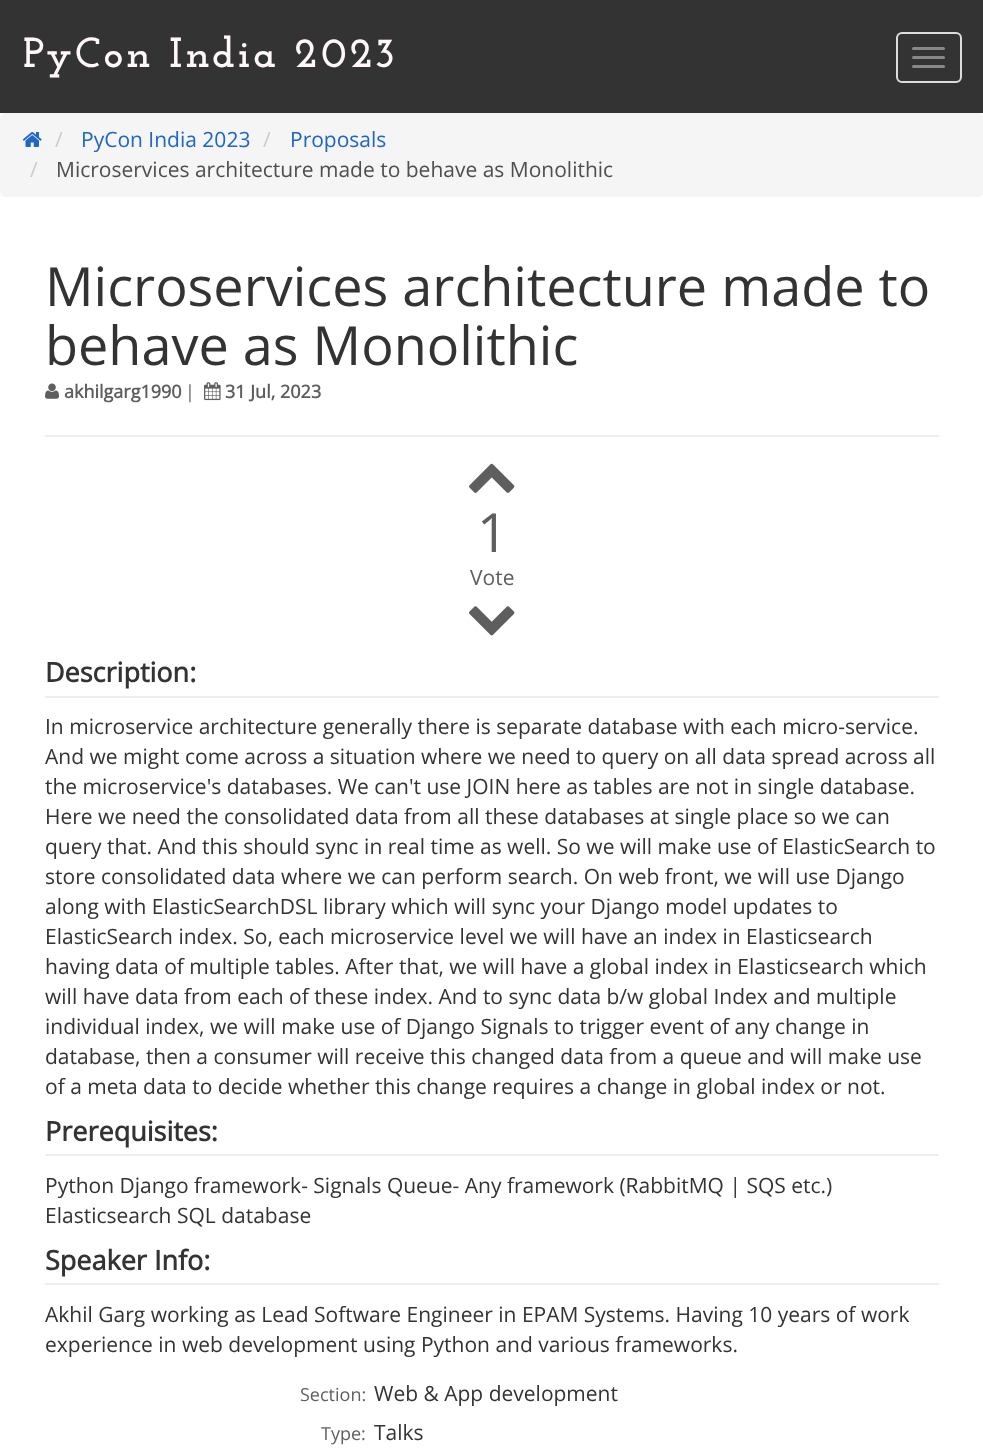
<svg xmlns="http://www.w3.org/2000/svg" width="983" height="1453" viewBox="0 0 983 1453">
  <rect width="100%" height="100%" fill="#fff"/>
  <path d="M0 0h983v113H0z" fill="#333"/>
  <rect x="897" y="33" width="64" height="49" rx="5" fill="none" stroke="#ddd" stroke-width="2"/>
  <rect x="912" y="47" width="33" height="3" rx="1.5" fill="#888"/>
  <rect x="912" y="56" width="33" height="3" rx="1.5" fill="#888"/>
  <rect x="912" y="65" width="33" height="3" rx="1.5" fill="#888"/>
  <rect y="113" width="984" height="84" rx="6" fill="#f5f5f5"/>
  <image x="22" y="132" width="20" height="15" href="img/1.png"/>
  <image x="45" y="383" width="14" height="16" href="img/2.png"/>
  <image x="204" y="382" width="17" height="19" href="img/3.png"/>
  <path d="M45 435h894v2H45z" fill="#eee"/>
  <image x="469" y="463" width="46" height="30" href="img/4.png"/>
  <image x="469" y="606" width="46" height="30" href="img/5.png"/>
  <path d="M45 696h894v2H45z" fill="#eee"/>
  <path d="M45 1154h894v2H45z" fill="#eee"/>
  <path d="M45 1283h894v2H45z" fill="#eee"/>
  <text x="23" y="67" font-family="Josefin Slab" font-size="42" font-weight="bold" letter-spacing="3" fill="#fff7f8">PyCon India 2023</text>
  <text x="55" y="147" font-family="Open Sans" font-size="21" fill="#ccc">/</text>
  <text x="81" y="147" font-family="Open Sans" font-size="21" fill="#2066c5">PyCon India 2023</text>
  <text x="263" y="147" font-family="Open Sans" font-size="21" fill="#ccc">/</text>
  <text x="290" y="147" font-family="Open Sans" font-size="21" fill="#2066c5">Proposals</text>
  <text x="30" y="177" font-family="Open Sans" font-size="21" fill="#ccc">/</text>
  <text x="56" y="177" font-family="Open Sans" font-size="21" fill="#4f4f4f">Microservices architecture made to behave as Monolithic</text>
  <g font-family="Open Sans" font-size="54" fill="#333">
    <text x="45" y="306">Microservices architecture made to</text>
    <text x="45" y="365">behave as Monolithic</text>
  </g>
  <text x="64" y="398" font-family="Open Sans" font-size="18" font-weight="bold" fill="#5e5e5e">akhilgarg1990</text>
  <text x="185" y="398" font-family="Open Sans" font-size="18" fill="#5e5e5e">|</text>
  <text x="225" y="398" font-family="Open Sans" font-size="18" font-weight="bold" fill="#5e5e5e">31 Jul, 2023</text>
  <text x="477" y="552" font-family="Open Sans" font-size="54" fill="#5e5e5e">1</text>
  <text x="470" y="585" font-family="Open Sans" font-size="21" fill="#5e5e5e">Vote</text>
  <text x="45" y="682" font-family="Open Sans" font-size="27" font-weight="bold" fill="#333">Description:</text>
  <g font-family="Open Sans" font-size="21" fill="#333">
    <text x="45" y="734">In microservice architecture generally there is separate database with each micro-service.</text>
    <text x="45" y="764">And we might come across a situation where we need to query on all data spread across all</text>
    <text x="45" y="794">the microservice's databases. We can't use JOIN here as tables are not in single database.</text>
    <text x="45" y="824">Here we need the consolidated data from all these databases at single place so we can</text>
    <text x="45" y="854">query that. And this should sync in real time as well. So we will make use of ElasticSearch to</text>
    <text x="45" y="884">store consolidated data where we can perform search. On web front, we will use Django</text>
    <text x="45" y="914">along with ElasticSearchDSL library which will sync your Django model updates to</text>
    <text x="45" y="944">ElasticSearch index. So, each microservice level we will have an index in Elasticsearch</text>
    <text x="45" y="974">having data of multiple tables. After that, we will have a global index in Elasticsearch which</text>
    <text x="45" y="1004">will have data from each of these index. And to sync data b/w global Index and multiple</text>
    <text x="45" y="1034">individual index, we will make use of Django Signals to trigger event of any change in</text>
    <text x="45" y="1064">database, then a consumer will receive this changed data from a queue and will make use</text>
    <text x="45" y="1094">of a meta data to decide whether this change requires a change in global index or not.</text>
  </g>
  <text x="45" y="1141" font-family="Open Sans" font-size="27" font-weight="bold" fill="#333">Prerequisites:</text>
  <g font-family="Open Sans" font-size="21" fill="#333">
    <text x="45" y="1193">Python Django framework- Signals Queue- Any framework (RabbitMQ | SQS etc.)</text>
    <text x="45" y="1223">Elasticsearch SQL database</text>
  </g>
  <text x="45" y="1270" font-family="Open Sans" font-size="27" font-weight="bold" fill="#333">Speaker Info:</text>
  <g font-family="Open Sans" font-size="21" fill="#333">
    <text x="45" y="1322">Akhil Garg working as Lead Software Engineer in EPAM Systems. Having 10 years of work</text>
    <text x="45" y="1352">experience in web development using Python and various frameworks.</text>
  </g>
  <text x="300" y="1401" font-family="Open Sans" font-size="18" fill="#5e5e5e">Section:</text>
  <text x="374" y="1401" font-family="Open Sans" font-size="21" fill="#333">Web &amp; App development</text>
  <text x="321" y="1440" font-family="Open Sans" font-size="18" fill="#5e5e5e">Type:</text>
  <text x="374" y="1440" font-family="Open Sans" font-size="21" fill="#333">Talks</text>
</svg>
